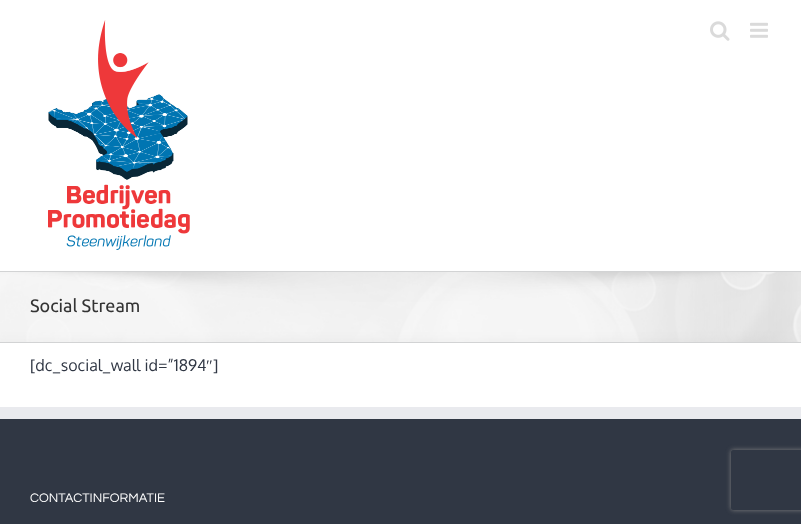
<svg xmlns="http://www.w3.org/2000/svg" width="801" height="524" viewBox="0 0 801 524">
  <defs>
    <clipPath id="clip1"><path d="M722 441H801V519H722ZM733 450H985C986 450 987 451 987 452V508C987 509 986 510 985 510H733C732 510 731 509 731 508V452C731 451 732 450 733 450Z" clip-rule="evenodd"/></clipPath>
  </defs>
  <rect width="100%" height="100%" fill="#fff"/>
  <image x="48" y="20" width="142" height="230" href="img/1.png"/>
  <image x="710" y="21" width="20" height="20" href="img/2.png"/>
  <image x="750" y="22" width="18" height="16" href="img/3.png"/>
  <path d="M0 272h801v70H0z" fill="#f6f6f6"/>
  <image x="0" y="272" width="801" height="70" href="img/4.png"/>
  <path d="M0 271h801v1H0z" fill="#d2d3d4"/>
  <path d="M0 342h801v1H0z" fill="#d2d3d4"/>
  <path d="M0 419h801v105H0z" fill="#303744"/>
  <path d="M0 407h801v12H0z" fill="#e9eaee"/>
  <g clip-path="url(#clip1)">
    <rect x="731" y="450" width="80" height="60" rx="2" fill="#808080" filter="blur(2.5px)"/>
  </g>
  <text x="30" y="312" font-family="Ubuntu" font-size="18" fill="#333">Social Stream</text>
  <text x="30" y="371" font-family="Oxygen" font-size="16" fill="#303744">[dc_social_wall id=”1894</text>
  <text x="206" y="371" font-family="Liberation Serif" font-size="16" fill="#303744">″</text>
  <text x="213" y="371" font-family="Oxygen" font-size="16" fill="#303744">]</text>
  <text x="30" y="502" font-family="Questrial" font-size="13" fill="#fff">CONTACTINFORMATIE</text>
</svg>
